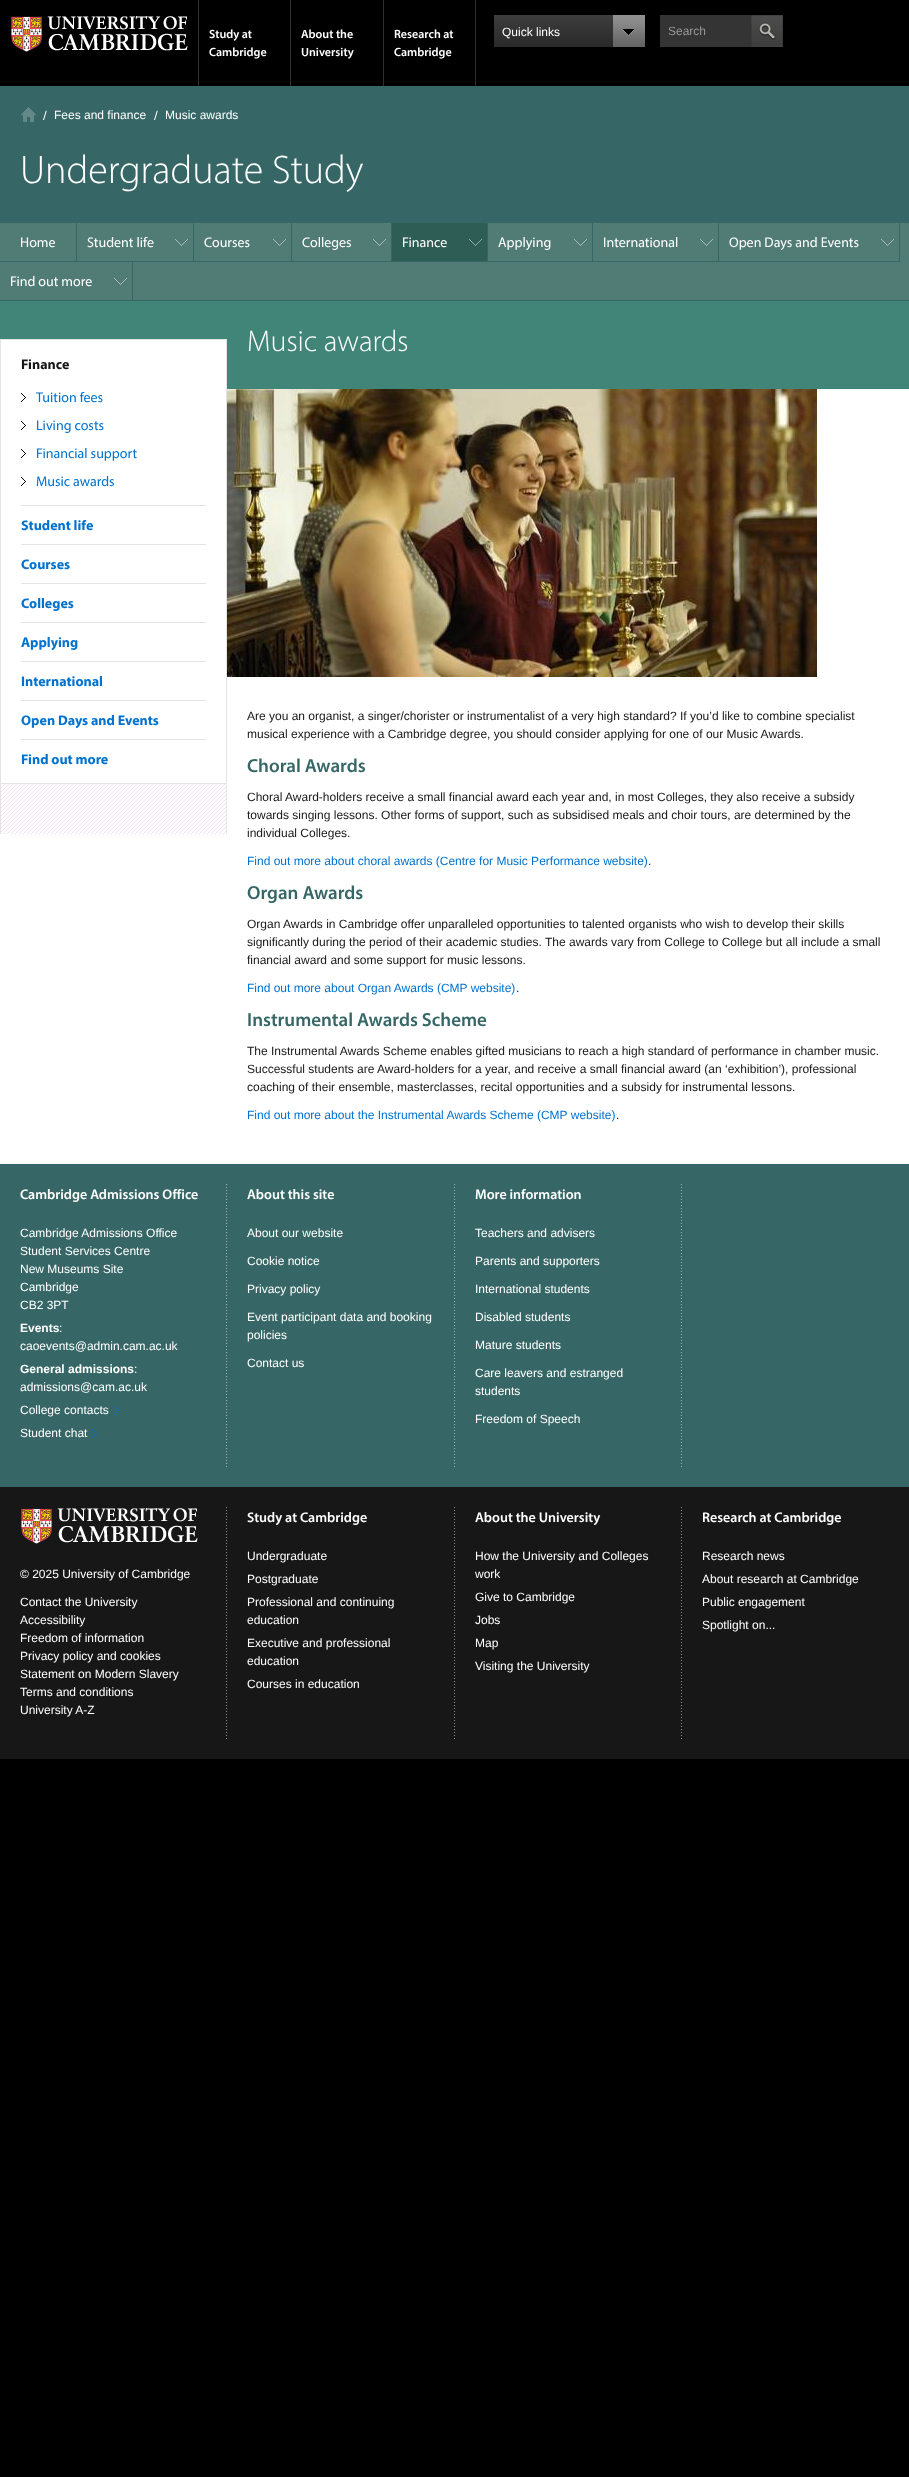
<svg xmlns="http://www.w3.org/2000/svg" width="909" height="2477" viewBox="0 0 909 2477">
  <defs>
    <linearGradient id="g1" gradientUnits="userSpaceOnUse" x1="570" y1="15" x2="570" y2="47"><stop offset="0" stop-color="#3d3d3d"/><stop offset="1" stop-color="#292929"/></linearGradient>
  </defs>
  <rect width="100%" height="100%" fill="#000"/>
  <image x="11" y="16" width="177" height="36" href="img/1.png"/>
  <path d="M198 0h1v86H198z" fill="#2e2e2e"/>
  <path d="M290 0h1v86H290z" fill="#2e2e2e"/>
  <path d="M383 0h1v86H383z" fill="#2e2e2e"/>
  <path d="M475 0h1v86H475z" fill="#2e2e2e"/>
  <path d="M494 15h119v32H494z" fill="url(#g1)"/>
  <image x="613" y="15" width="32" height="32" href="img/2.png"/>
  <path d="M660 15h91v32H660z" fill="#343434"/>
  <image x="751" y="15" width="32" height="32" href="img/3.png"/>
  <path d="M0 86h909v136H0z" fill="#366766"/>
  <image x="21" y="107" width="15" height="15" href="img/4.png"/>
  <image x="43" y="110" width="4" height="10" href="img/5.png"/>
  <image x="154" y="110" width="4" height="10" href="img/5.png"/>
  <path d="M133 223h776v77H133z" fill="#507c75"/>
  <path d="M900 222h9v1H900z" fill="#366766"/>
  <path d="M133 300h776v1H133z" fill="#366766"/>
  <path d="M0 223h76v38H0z" fill="#507c75"/>
  <path d="M0 222h900v1H0z" fill="#366766"/>
  <path d="M76 222h1v40H76z" fill="#366766"/>
  <path d="M77 223h56v38H77z" fill="#507c75"/>
  <image x="175" y="239" width="13" height="7" href="img/6.png"/>
  <path d="M193 222h1v40H193z" fill="#366766"/>
  <path d="M0 261h194v1H0z" fill="#366766"/>
  <image x="273" y="239" width="13" height="7" href="img/6.png"/>
  <path d="M291 222h1v40H291z" fill="#366766"/>
  <path d="M194 261h98v1H194z" fill="#366766"/>
  <image x="373" y="239" width="13" height="7" href="img/6.png"/>
  <path d="M391 222h1v40H391z" fill="#366766"/>
  <path d="M292 261h100v1H292z" fill="#366766"/>
  <path d="M392 223h95v38H392z" fill="#2d5d54"/>
  <image x="469" y="239" width="13" height="7" href="img/7.png"/>
  <path d="M487 222h1v40H487z" fill="#366766"/>
  <path d="M392 261h96v1H392z" fill="#366766"/>
  <image x="574" y="239" width="13" height="7" href="img/6.png"/>
  <path d="M592 222h1v40H592z" fill="#366766"/>
  <path d="M488 261h105v1H488z" fill="#366766"/>
  <image x="700" y="239" width="13" height="7" href="img/6.png"/>
  <path d="M718 222h1v40H718z" fill="#366766"/>
  <path d="M593 261h126v1H593z" fill="#366766"/>
  <image x="881" y="239" width="13" height="7" href="img/6.png"/>
  <path d="M899 222h1v40H899z" fill="#366766"/>
  <path d="M719 261h181v1H719z" fill="#366766"/>
  <path d="M0 262h132v38H0z" fill="#507c75"/>
  <image x="114" y="278" width="13" height="7" href="img/6.png"/>
  <path d="M132 261h1v40H132z" fill="#366766"/>
  <path d="M0 300h133v1H0z" fill="#366766"/>
  <path d="M0 301h909v88H0z" fill="#418579"/>
  <path d="M0 389h909v775H0z" fill="#fff"/>
  <image x="1" y="784" width="225" height="50" href="img/8.png"/>
  <path d="M0 339h227v1H0z" fill="#e4e4e4"/>
  <path d="M226 339h1v495H226z" fill="#e4e4e4"/>
  <path d="M0 339h1v495H0z" fill="#e4e4e4"/>
  <path d="M1 340h225v49H1z" fill="#fff"/>
  <path d="M1 783h225v1H1z" fill="#e4e4e4"/>
  <path d="M21 505h185v1H21z" fill="#e4e4e4"/>
  <image x="21" y="393" width="5" height="9" href="img/9.png"/>
  <image x="21" y="421" width="5" height="9" href="img/9.png"/>
  <image x="21" y="449" width="5" height="9" href="img/9.png"/>
  <image x="21" y="477" width="5" height="9" href="img/9.png"/>
  <path d="M21 544h185v1H21z" fill="#e4e4e4"/>
  <path d="M21 583h185v1H21z" fill="#e4e4e4"/>
  <path d="M21 622h185v1H21z" fill="#e4e4e4"/>
  <path d="M21 661h185v1H21z" fill="#e4e4e4"/>
  <path d="M21 700h185v1H21z" fill="#e4e4e4"/>
  <path d="M21 739h185v1H21z" fill="#e4e4e4"/>
  <image x="227" y="389" width="590" height="288" href="img/10.png"/>
  <path d="M0 1164h909v323H0z" fill="#366766"/>
  <image x="226" y="1184" width="1" height="283" href="img/11.png"/>
  <image x="114" y="1406" width="5" height="9" href="img/12.png"/>
  <image x="92" y="1429" width="5" height="9" href="img/12.png"/>
  <image x="454" y="1184" width="1" height="283" href="img/11.png"/>
  <image x="681" y="1184" width="1" height="283" href="img/11.png"/>
  <path d="M0 1487h909v272H0z" fill="#171717"/>
  <image x="226" y="1507" width="1" height="232" href="img/13.png"/>
  <image x="21" y="1508" width="177" height="36" href="img/14.png"/>
  <image x="454" y="1507" width="1" height="232" href="img/13.png"/>
  <image x="681" y="1507" width="1" height="232" href="img/13.png"/>
  <g font-family="Myriad" font-size="12" font-weight="600" fill="#fff">
    <text x="209" y="38">Study at</text>
    <text x="209" y="56">Cambridge</text>
    <text x="301" y="38">About the</text>
    <text x="301" y="56">University</text>
    <text x="394" y="38">Research at</text>
    <text x="394" y="56">Cambridge</text>
  </g>
  <text x="502" y="36" font-family="Liberation Sans" font-size="12" fill="#fff">Quick links</text>
  <text x="668" y="35" font-family="Liberation Sans" font-size="12" fill="#999">Search</text>
  <g font-family="Liberation Sans" font-size="12" fill="#fff">
    <text x="54" y="119">Fees and finance</text>
    <text x="165" y="119">Music awards</text>
  </g>
  <text x="20" y="183" font-family="Myriad" font-size="40" font-weight="300" fill="#fff">Undergraduate Study</text>
  <g font-family="Myriad" font-size="14" fill="#fff">
    <text x="20" y="247">Home</text>
    <text x="87" y="247">Student life</text>
    <text x="204" y="247">Courses</text>
    <text x="302" y="247">Colleges</text>
    <text x="402" y="247">Finance</text>
    <text x="498" y="247">Applying</text>
    <text x="603" y="247">International</text>
    <text x="729" y="247">Open Days and Events</text>
    <text x="10" y="286">Find out more</text>
  </g>
  <text x="247" y="351" font-family="Myriad" font-size="30" font-weight="300" fill="#fff">Music awards</text>
  <text x="21" y="369" font-family="Myriad" font-size="14" font-weight="bold" fill="#171717">Finance</text>
  <g font-family="Myriad" font-size="14" fill="#0072cf">
    <text x="36" y="402">Tuition fees</text>
    <text x="36" y="430">Living costs</text>
    <text x="36" y="458">Financial support</text>
    <text x="36" y="486">Music awards</text>
  </g>
  <g font-family="Myriad" font-size="14" font-weight="bold" fill="#0072cf">
    <text x="21" y="530">Student life</text>
    <text x="21" y="569">Courses</text>
    <text x="21" y="608">Colleges</text>
    <text x="21" y="647">Applying</text>
    <text x="21" y="686">International</text>
    <text x="21" y="725">Open Days and Events</text>
    <text x="21" y="764">Find out more</text>
  </g>
  <g font-family="Liberation Sans" font-size="12" fill="#171717">
    <text x="247" y="720">Are you an organist, a singer/chorister or instrumentalist of a very high standard? If you’d like to combine specialist</text>
    <text x="247" y="738">musical experience with a Cambridge degree, you should consider applying for one of our Music Awards.</text>
  </g>
  <text x="247" y="772" font-family="Myriad" font-size="19" font-weight="600" fill="#366766">Choral Awards</text>
  <g font-family="Liberation Sans" font-size="12" fill="#171717">
    <text x="247" y="801">Choral Award-holders receive a small financial award each year and, in most Colleges, they also receive a subsidy</text>
    <text x="247" y="819">towards singing lessons. Other forms of support, such as subsidised meals and choir tours, are determined by the</text>
    <text x="247" y="837">individual Colleges.</text>
  </g>
  <text x="247" y="865" font-family="Liberation Sans" font-size="12" fill="#0072cf">Find out more about choral awards (Centre for Music Performance website)</text>
  <text x="648" y="865" font-family="Liberation Sans" font-size="12" fill="#171717">.</text>
  <text x="247" y="899" font-family="Myriad" font-size="19" font-weight="600" fill="#366766">Organ Awards</text>
  <g font-family="Liberation Sans" font-size="12" fill="#171717">
    <text x="247" y="928">Organ Awards in Cambridge offer unparalleled opportunities to talented organists who wish to develop their skills</text>
    <text x="247" y="946">significantly during the period of their academic studies. The awards vary from College to College but all include a small</text>
    <text x="247" y="964">financial award and some support for music lessons.</text>
  </g>
  <text x="247" y="992" font-family="Liberation Sans" font-size="12" fill="#0072cf">Find out more about Organ Awards (CMP website)</text>
  <text x="516" y="992" font-family="Liberation Sans" font-size="12" fill="#171717">.</text>
  <text x="247" y="1026" font-family="Myriad" font-size="19" font-weight="600" fill="#366766">Instrumental Awards Scheme</text>
  <g font-family="Liberation Sans" font-size="12" fill="#171717">
    <text x="247" y="1055">The Instrumental Awards Scheme enables gifted musicians to reach a high standard of performance in chamber music.</text>
    <text x="247" y="1073">Successful students are Award-holders for a year, and receive a small financial award (an ‘exhibition’), professional</text>
    <text x="247" y="1091">coaching of their ensemble, masterclasses, recital opportunities and a subsidy for instrumental lessons.</text>
  </g>
  <text x="247" y="1119" font-family="Liberation Sans" font-size="12" fill="#0072cf">Find out more about the Instrumental Awards Scheme (CMP website)</text>
  <text x="616" y="1119" font-family="Liberation Sans" font-size="12" fill="#171717">.</text>
  <text x="20" y="1199" font-family="Myriad" font-size="14" font-weight="600" fill="#fff">Cambridge Admissions Office</text>
  <g font-family="Liberation Sans" font-size="12" fill="#fff">
    <text x="20" y="1237">Cambridge Admissions Office</text>
    <text x="20" y="1255">Student Services Centre</text>
    <text x="20" y="1273">New Museums Site</text>
    <text x="20" y="1291">Cambridge</text>
    <text x="20" y="1309">CB2 3PT</text>
  </g>
  <text x="20" y="1332" font-family="Liberation Sans" font-size="12" font-weight="bold" fill="#fff">Events</text>
  <g font-family="Liberation Sans" font-size="12" fill="#fff">
    <text x="59" y="1332">:</text>
    <text x="20" y="1350">caoevents@admin.cam.ac.uk</text>
  </g>
  <text x="20" y="1373" font-family="Liberation Sans" font-size="12" font-weight="bold" fill="#fff">General admissions</text>
  <g font-family="Liberation Sans" font-size="12" fill="#fff">
    <text x="134" y="1373">:</text>
    <text x="20" y="1391">admissions@cam.ac.uk</text>
    <text x="20" y="1414">College contacts</text>
    <text x="20" y="1437">Student chat</text>
  </g>
  <text x="247" y="1199" font-family="Myriad" font-size="14" font-weight="600" fill="#fff">About this site</text>
  <g font-family="Liberation Sans" font-size="12" fill="#fff">
    <text x="247" y="1237">About our website</text>
    <text x="247" y="1265">Cookie notice</text>
    <text x="247" y="1293">Privacy policy</text>
    <text x="247" y="1321">Event participant data and booking</text>
    <text x="247" y="1339">policies</text>
    <text x="247" y="1367">Contact us</text>
  </g>
  <text x="475" y="1199" font-family="Myriad" font-size="14" font-weight="600" fill="#fff">More information</text>
  <g font-family="Liberation Sans" font-size="12" fill="#fff">
    <text x="475" y="1237">Teachers and advisers</text>
    <text x="475" y="1265">Parents and supporters</text>
    <text x="475" y="1293">International students</text>
    <text x="475" y="1321">Disabled students</text>
    <text x="475" y="1349">Mature students</text>
    <text x="475" y="1377">Care leavers and estranged</text>
    <text x="475" y="1395">students</text>
    <text x="475" y="1423">Freedom of Speech</text>
    <text x="20" y="1578">© 2025 University of Cambridge</text>
    <text x="20" y="1606">Contact the University</text>
    <text x="20" y="1624">Accessibility</text>
    <text x="20" y="1642">Freedom of information</text>
    <text x="20" y="1660">Privacy policy and cookies</text>
    <text x="20" y="1678">Statement on Modern Slavery</text>
    <text x="20" y="1696">Terms and conditions</text>
    <text x="20" y="1714">University A-Z</text>
  </g>
  <text x="247" y="1522" font-family="Myriad" font-size="14" font-weight="600" fill="#fff">Study at Cambridge</text>
  <g font-family="Liberation Sans" font-size="12" fill="#fff">
    <text x="247" y="1560">Undergraduate</text>
    <text x="247" y="1583">Postgraduate</text>
    <text x="247" y="1606">Professional and continuing</text>
    <text x="247" y="1624">education</text>
    <text x="247" y="1647">Executive and professional</text>
    <text x="247" y="1665">education</text>
    <text x="247" y="1688">Courses in education</text>
  </g>
  <text x="475" y="1522" font-family="Myriad" font-size="14" font-weight="600" fill="#fff">About the University</text>
  <g font-family="Liberation Sans" font-size="12" fill="#fff">
    <text x="475" y="1560">How the University and Colleges</text>
    <text x="475" y="1578">work</text>
    <text x="475" y="1601">Give to Cambridge</text>
    <text x="475" y="1624">Jobs</text>
    <text x="475" y="1647">Map</text>
    <text x="475" y="1670">Visiting the University</text>
  </g>
  <text x="702" y="1522" font-family="Myriad" font-size="14" font-weight="600" fill="#fff">Research at Cambridge</text>
  <g font-family="Liberation Sans" font-size="12" fill="#fff">
    <text x="702" y="1560">Research news</text>
    <text x="702" y="1583">About research at Cambridge</text>
    <text x="702" y="1606">Public engagement</text>
    <text x="702" y="1629">Spotlight on...</text>
  </g>
</svg>
